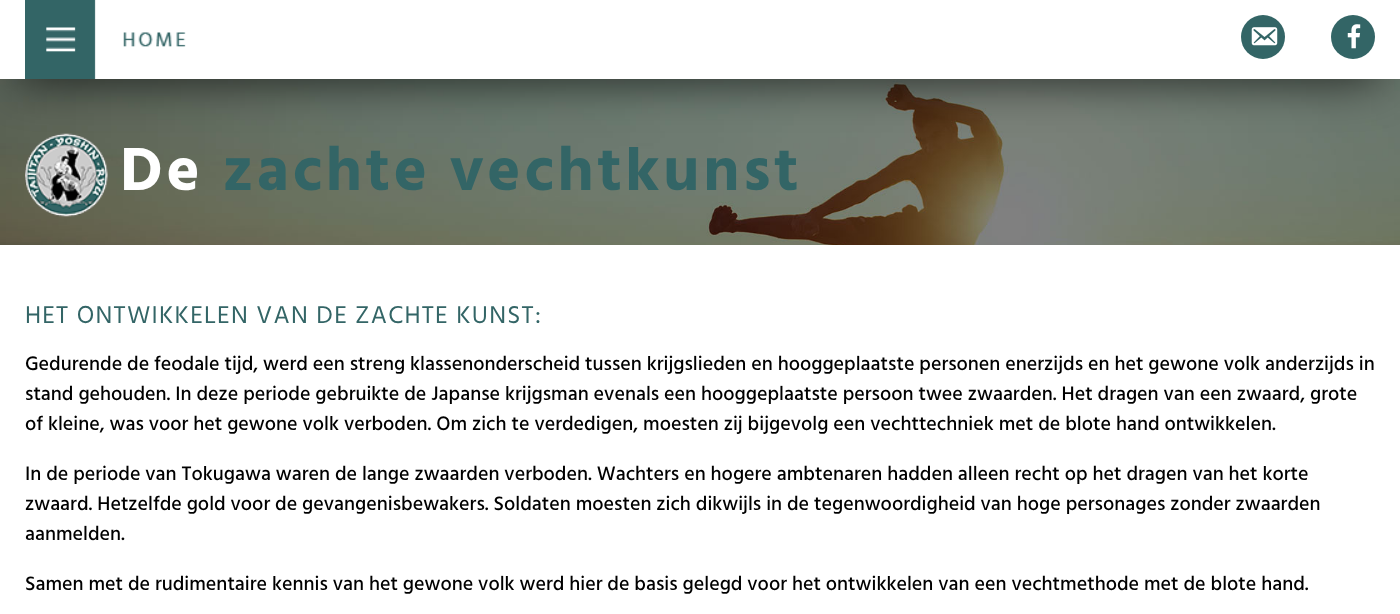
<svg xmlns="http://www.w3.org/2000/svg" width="1400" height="614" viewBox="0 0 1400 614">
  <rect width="100%" height="100%" fill="#fff"/>
  <image x="0" y="79" width="1400" height="166" href="img/4.png"/>
  <image x="25" y="133" width="83" height="84" href="img/5.png"/>
  <path d="M19 40h1360v39H19z" fill="#000000bf" filter="blur(23px)"/>
  <path d="M0 0h1400v79H0z" fill="#fff"/>
  <image x="25" y="0" width="161" height="79" href="img/1.png"/>
  <circle cx="1263" cy="37" r="22" fill="#336566"/>
  <image x="1251" y="27" width="27" height="19" href="img/2.png"/>
  <circle cx="1353" cy="37" r="22" fill="#336566"/>
  <image x="1347" y="24" width="14" height="25" href="img/3.png"/>
  <text x="120" y="190" font-family="Hind" font-size="62.5" font-weight="bold" letter-spacing="3.75" fill="#fff">De</text>
  <text x="223" y="190" font-family="Hind" font-size="62.5" font-weight="bold" letter-spacing="3.75" fill="#336566">zachte vechtkunst</text>
  <text x="25" y="323" font-family="Hind" font-size="25" letter-spacing="1.25" fill="#336566">HET ONTWIKKELEN VAN DE ZACHTE KUNST:</text>
  <g font-family="Hind" font-size="20" font-weight="500" fill="#000">
    <text x="25" y="370">Gedurende de feodale tijd, werd een streng klassenonderscheid tussen krijgslieden en hooggeplaatste personen enerzijds en het gewone volk anderzijds in</text>
    <text x="25" y="400">stand gehouden. In deze periode gebruikte de Japanse krijgsman evenals een hooggeplaatste persoon twee zwaarden. Het dragen van een zwaard, grote</text>
    <text x="25" y="430">of kleine, was voor het gewone volk verboden. Om zich te verdedigen, moesten zij bijgevolg een vechttechniek met de blote hand ontwikkelen.</text>
    <text x="25" y="480">In de periode van Tokugawa waren de lange zwaarden verboden. Wachters en hogere ambtenaren hadden alleen recht op het dragen van het korte</text>
    <text x="25" y="510">zwaard. Hetzelfde gold voor de gevangenisbewakers. Soldaten moesten zich dikwijls in de tegenwoordigheid van hoge personages zonder zwaarden</text>
    <text x="25" y="540">aanmelden.</text>
    <text x="25" y="590">Samen met de rudimentaire kennis van het gewone volk werd hier de basis gelegd voor het ontwikkelen van een vechtmethode met de blote hand.</text>
  </g>
</svg>
